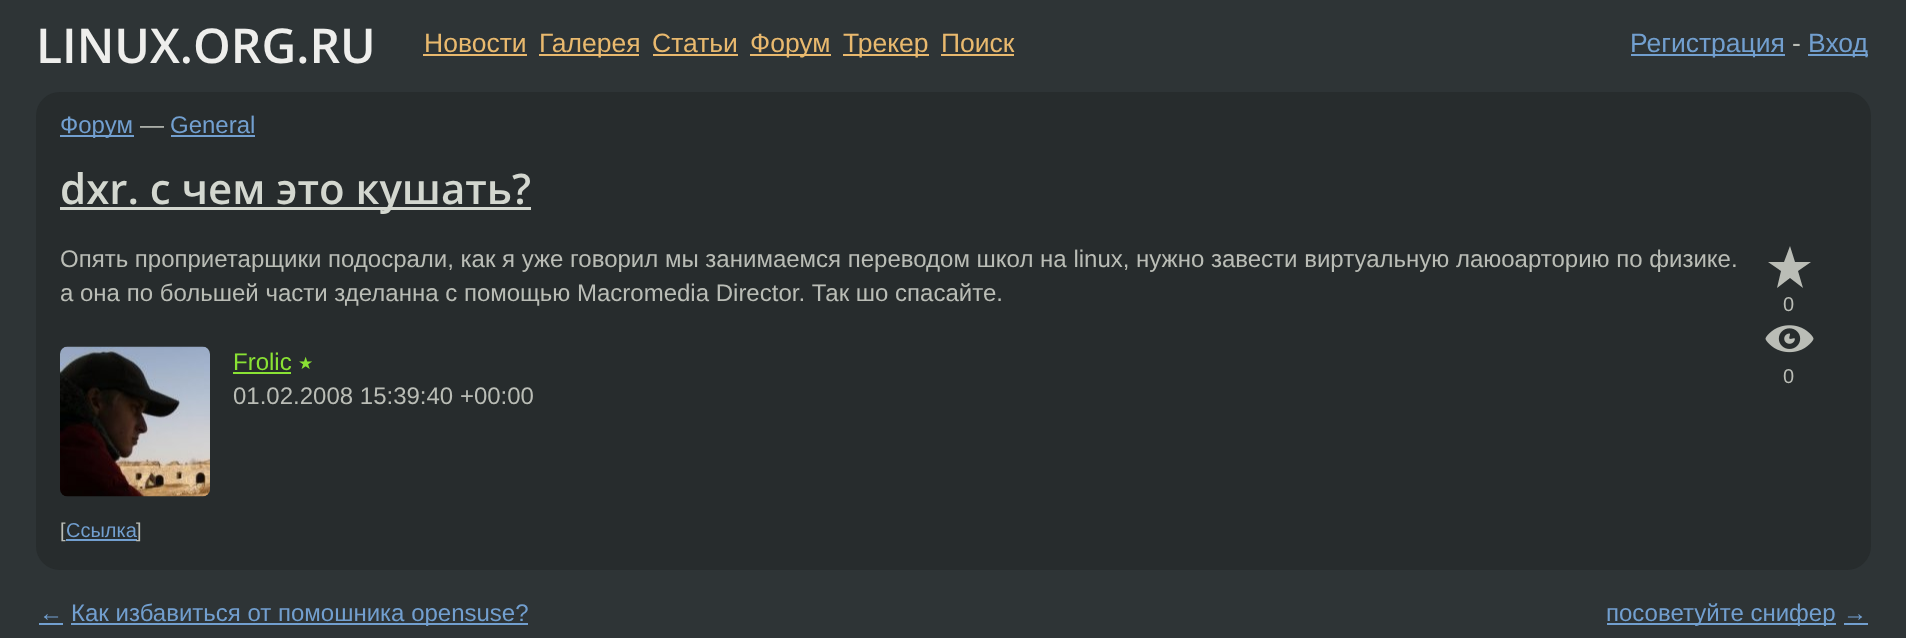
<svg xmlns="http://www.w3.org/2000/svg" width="1906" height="638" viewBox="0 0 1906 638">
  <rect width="100%" height="100%" fill="#2e3436"/>
  <path d="M423 54h104v2H423z" fill="#e9b96e"/>
  <path d="M539 54h100v2H539z" fill="#e9b96e"/>
  <path d="M653 54h85v2H653z" fill="#e9b96e"/>
  <path d="M750 54h81v2H750z" fill="#e9b96e"/>
  <path d="M843 54h86v2H843z" fill="#e9b96e"/>
  <path d="M941 54h73v2H941z" fill="#e9b96e"/>
  <path d="M1631 54h154v2H1631z" fill="#729fcf"/>
  <path d="M1808 54h60v2H1808z" fill="#729fcf"/>
  <rect x="36" y="92" width="1835" height="478" rx="24" fill="#272c2d"/>
  <path d="M60 135h74v2H60z" fill="#729fcf"/>
  <path d="M171 135h84v2H171z" fill="#729fcf"/>
  <path d="M60 207h471v3H60z" fill="#d3d7cf"/>
  <image x="60" y="346" width="150" height="151" href="img/1.png"/>
  <path d="M233 372h58v2H233z" fill="#8ae234"/>
  <path d="M1790 246L1795 262H1811L1798 271L1803 288L1790 278L1777 288L1781 271L1768 262H1784Z" fill="#babdb6"/>
  <image x="1765" y="325" width="49" height="28" href="img/2.png"/>
  <path d="M66 539h71v2H66z" fill="#729fcf"/>
  <path d="M39 623h24v2H39z" fill="#729fcf"/>
  <path d="M71 623h457v2H71z" fill="#729fcf"/>
  <path d="M1607 623h229v2H1607z" fill="#729fcf"/>
  <path d="M1844 623h24v2H1844z" fill="#729fcf"/>
  <text x="36" y="63" font-family="Open Sans" font-size="48" font-weight="600" fill="#eeeeec">LINUX.ORG.RU</text>
  <g font-family="Liberation Sans" font-size="26.5" fill="#e9b96e">
    <text x="424" y="52">Новости</text>
    <text x="539" y="52">Галерея</text>
    <text x="652" y="52">Статьи</text>
    <text x="750" y="52">Форум</text>
    <text x="843" y="52">Трекер</text>
    <text x="941" y="52">Поиск</text>
  </g>
  <text x="1630" y="52" font-family="Liberation Sans" font-size="26.5" fill="#729fcf">Регистрация</text>
  <text x="1792" y="52" font-family="Liberation Sans" font-size="26.5" fill="#babdb6">-</text>
  <text x="1808" y="52" font-family="Liberation Sans" font-size="26.5" fill="#729fcf">Вход</text>
  <text x="60" y="133" font-family="Liberation Sans" font-size="24" fill="#729fcf">Форум</text>
  <text x="140" y="133" font-family="Liberation Sans" font-size="24" fill="#babdb6">—</text>
  <text x="170" y="133" font-family="Liberation Sans" font-size="24" fill="#729fcf">General</text>
  <text x="60" y="204" font-family="Open Sans" font-size="42" font-weight="600" fill="#d3d7cf">dxr. с чем это кушать?</text>
  <g font-family="Liberation Sans" font-size="24" fill="#babdb6">
    <text x="60" y="267">Опять проприетарщики подосрали, как я уже говорил мы занимаемся переводом школ на linux, нужно завести виртуальную лаюоарторию по физике.</text>
    <text x="60" y="301">а она по большей части зделанна с помощью Macromedia Director. Так шо спасайте.</text>
  </g>
  <text x="233" y="370" font-family="Liberation Sans" font-size="24" fill="#8ae234">Frolic</text>
  <text x="298" y="369" font-family="DejaVu Sans" font-size="17" letter-spacing="2" fill="#8ae234">★</text>
  <text x="233" y="404" font-family="Liberation Sans" font-size="24" fill="#babdb6">01.02.2008 15:39:40 +00:00</text>
  <g font-family="Liberation Sans" font-size="20" fill="#babdb6">
    <text x="1783" y="311">0</text>
    <text x="1783" y="383">0</text>
    <text x="60" y="537">[</text>
  </g>
  <text x="66" y="537" font-family="Liberation Sans" font-size="20" fill="#729fcf">Ссылка</text>
  <text x="136" y="537" font-family="Liberation Sans" font-size="20" fill="#babdb6">]</text>
  <g font-family="Liberation Sans" font-size="24" fill="#729fcf">
    <text x="39" y="621">←</text>
    <text x="71" y="621">Как избавиться от помошника opensuse?</text>
    <text x="1606" y="621">посоветуйте снифер</text>
    <text x="1843" y="621">→</text>
  </g>
</svg>
